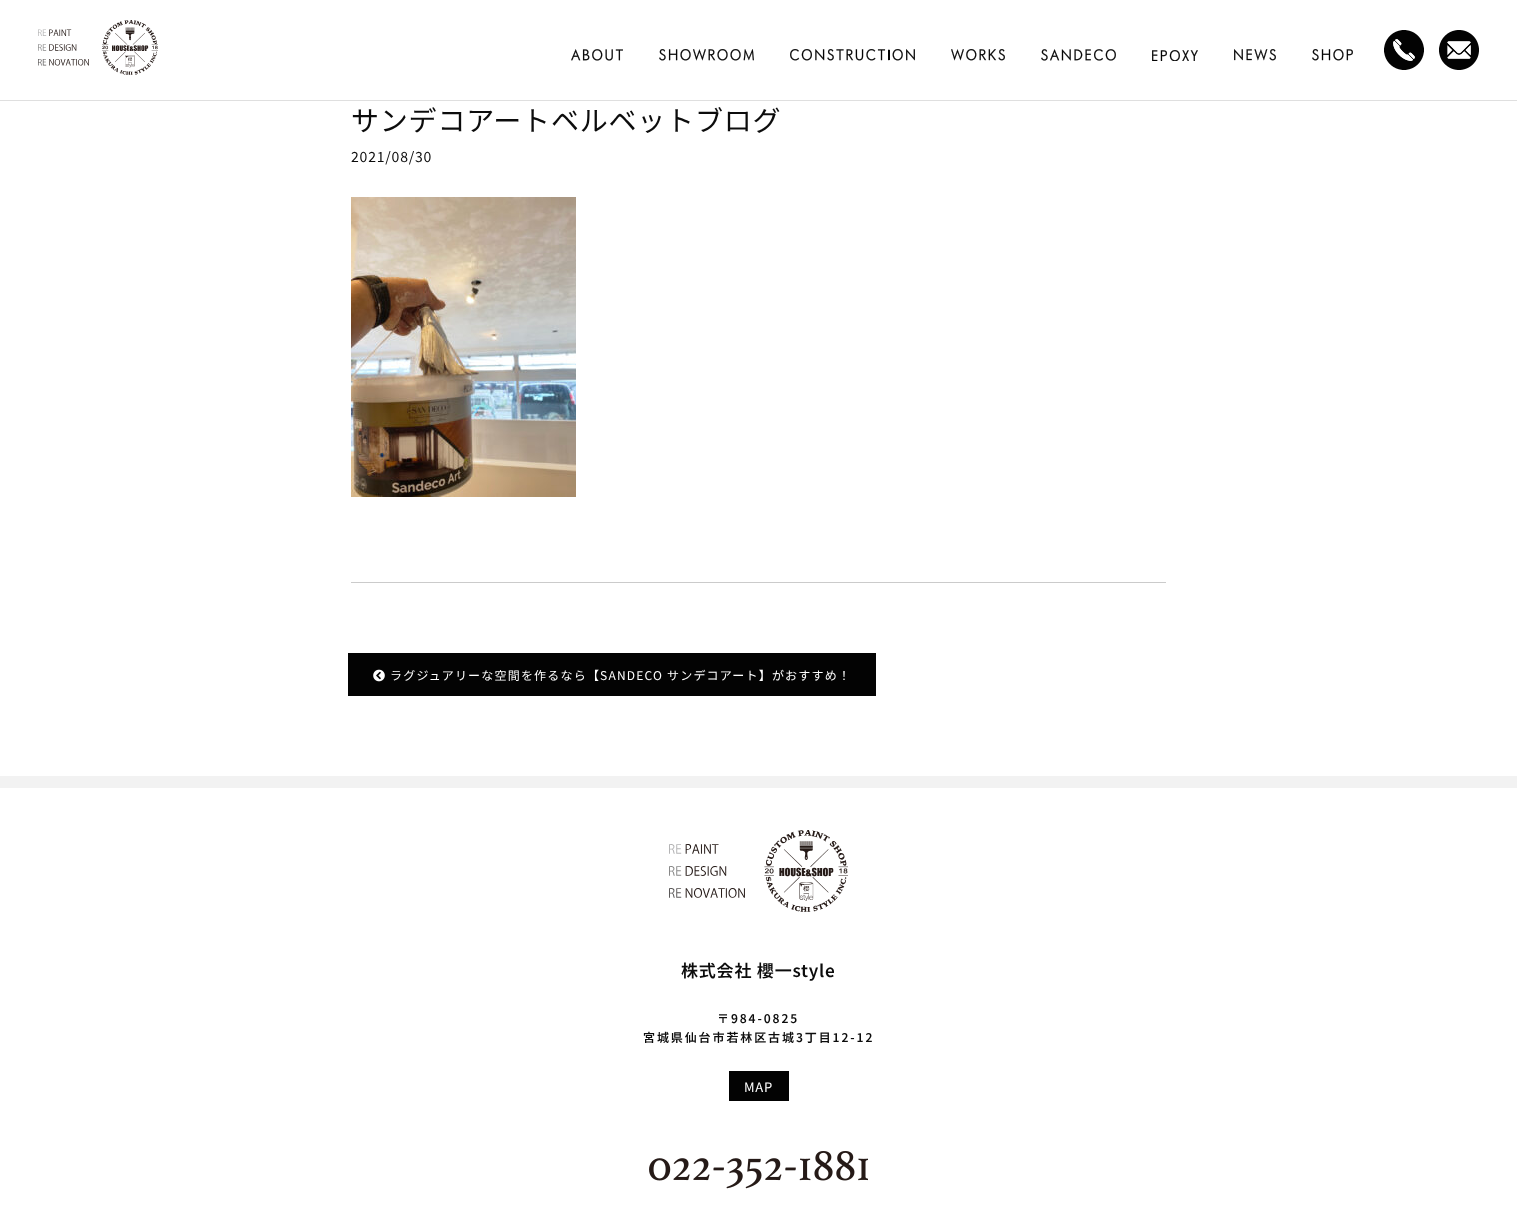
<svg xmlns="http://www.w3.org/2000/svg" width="1517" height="1209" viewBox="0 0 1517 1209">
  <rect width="100%" height="100%" fill="#fff"/>
  <path d="M0 100h1517v1H0z" fill="#dfdfdf"/>
  <image x="38" y="20" width="120" height="55" href="img/1.png"/>
  <image x="571" y="49" width="52" height="12" href="img/2.png"/>
  <image x="659" y="49" width="95" height="12" href="img/3.png"/>
  <image x="790" y="49" width="125" height="12" href="img/4.png"/>
  <image x="951" y="49" width="54" height="12" href="img/5.png"/>
  <image x="1041" y="49" width="75" height="12" href="img/6.png"/>
  <image x="1152" y="50" width="46" height="11" href="img/7.png"/>
  <image x="1234" y="49" width="42" height="12" href="img/8.png"/>
  <image x="1312" y="49" width="41" height="12" href="img/9.png"/>
  <image x="1384" y="30" width="40" height="40" href="img/10.png"/>
  <image x="1439" y="30" width="40" height="40" href="img/11.png"/>
  <path d="M351 582h815v1H351z" fill="#cbcbcb"/>
  <image x="351" y="197" width="225" height="300" href="img/12.png"/>
  <path d="M348 653h528v43H348z" fill="#030303"/>
  <image x="373" y="669" width="12" height="13" href="img/13.png"/>
  <path d="M0 776h1517v12H0z" fill="#f2f2f2"/>
  <image x="669" y="830" width="179" height="82" href="img/14.png"/>
  <path d="M729 1071h60v30H729z" fill="#030303"/>
  <image x="649" y="1151" width="219" height="38" href="img/15.png"/>
  <text x="351" y="131" font-family="Noto Sans JP" font-size="28" letter-spacing="0.8" fill="#0c0c0c">サンデコアートベルベットブログ</text>
  <text x="351" y="162" font-family="Noto Sans JP" font-size="14" letter-spacing="0.8" fill="#0c0c0c">2021/08/30</text>
  <text x="390" y="680" font-family="Noto Sans JP" font-size="12" letter-spacing="1.2" fill="#fff">ラグジュアリーな空間を作るなら【SANDECO サンデコアート】がおすすめ！</text>
  <text x="681" y="977" font-family="Noto Sans JP" font-size="17" font-weight="600" letter-spacing="0.8" fill="#0c0c0c">株式会社 櫻一style</text>
  <g font-family="Noto Sans JP" font-size="12" font-weight="600" letter-spacing="1.9" fill="#0c0c0c">
    <text x="717" y="1023">〒984-0825</text>
    <text x="643" y="1042">宮城県仙台市若林区古城3丁目12-12</text>
  </g>
  <text x="744" y="1092" font-family="Noto Sans JP" font-size="13" letter-spacing="0.8" fill="#fff">MAP</text>
</svg>
